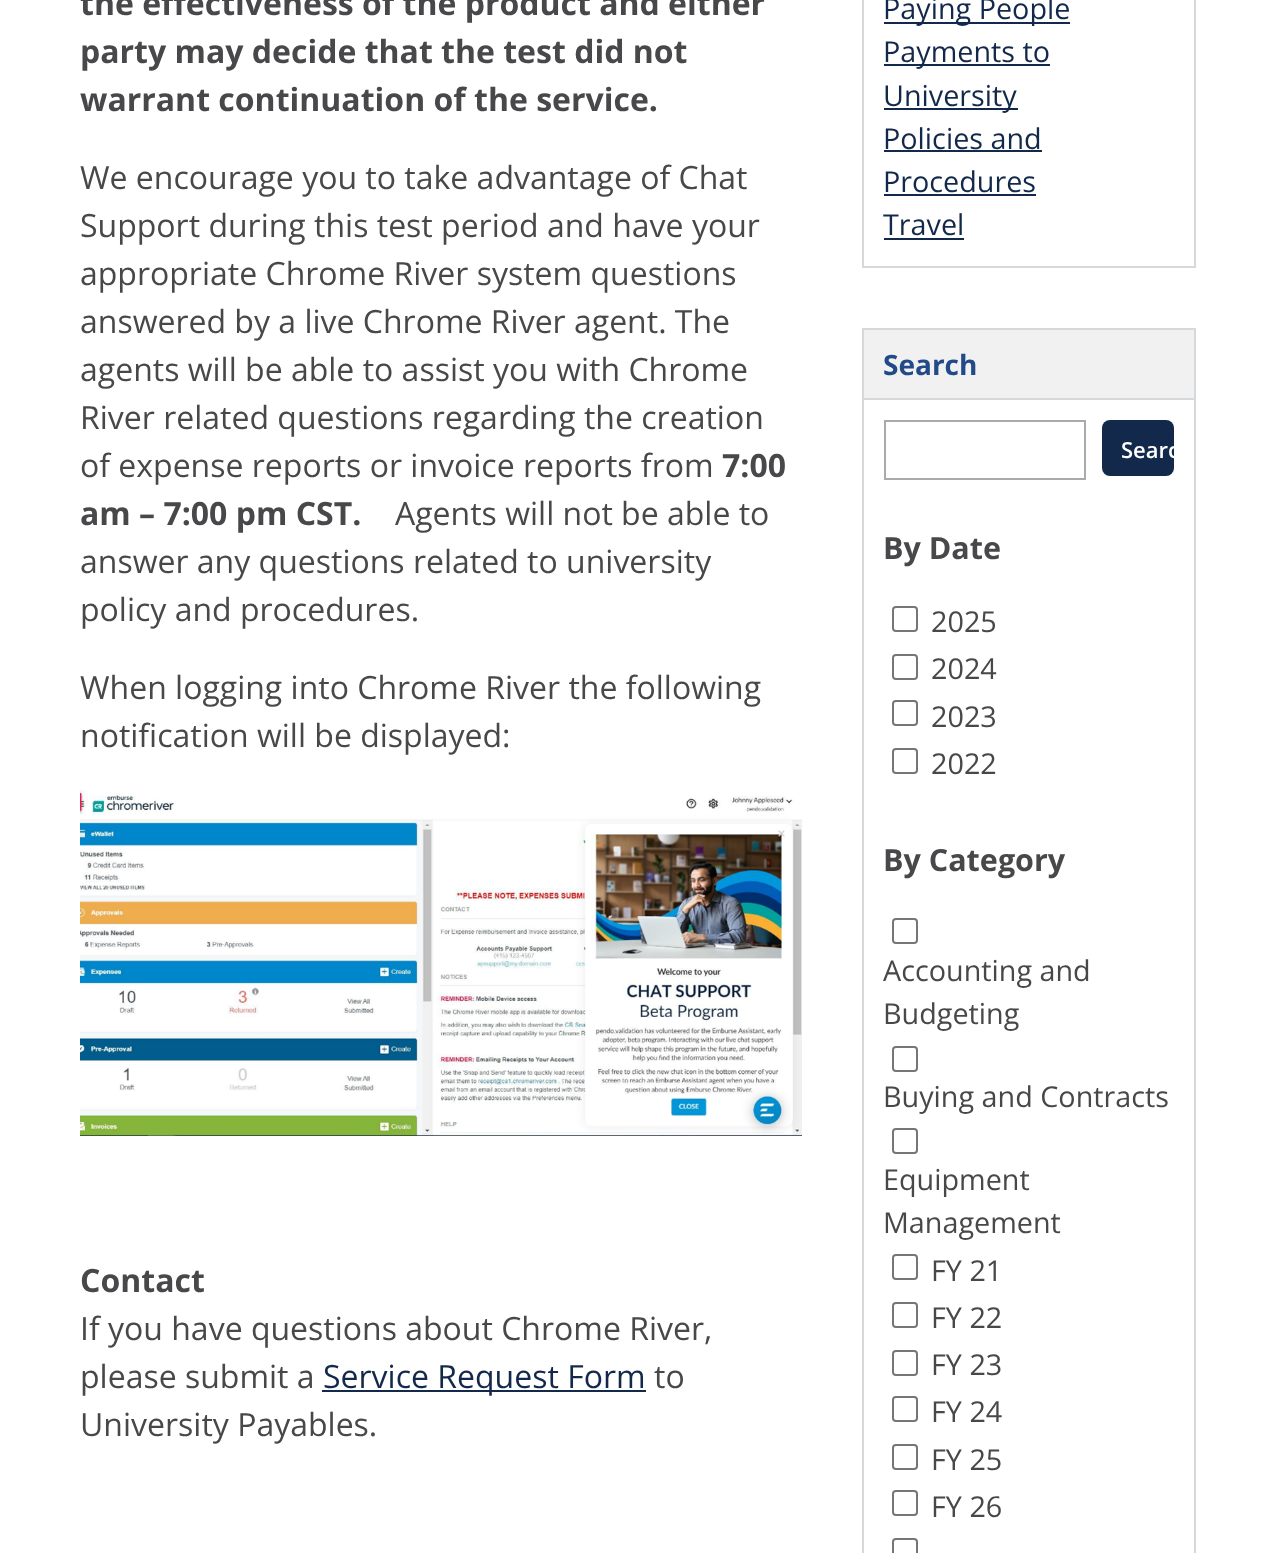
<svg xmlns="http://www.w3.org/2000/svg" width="1275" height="1553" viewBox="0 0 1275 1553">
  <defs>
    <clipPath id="clip1"><rect x="1102" y="420" width="72" height="56" rx="8"/></clipPath>
  </defs>
  <rect width="100%" height="100%" fill="#fff"/>
  <image x="80" y="790" width="722" height="346" href="img/1.png"/>
  <path d="M322 1390h324v2H322z" fill="#13294b"/>
  <path d="M863 -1h332v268H863z" fill="none" stroke="#d6d9db" stroke-width="2"/>
  <path d="M884 22h186v2H884z" fill="#13294b"/>
  <path d="M884 64h166v2H884z" fill="#13294b"/>
  <path d="M884 108h134v2H884z" fill="#13294b"/>
  <path d="M884 150h158v2H884z" fill="#13294b"/>
  <path d="M884 194h152v2H884z" fill="#13294b"/>
  <path d="M884 238h80v2H884z" fill="#13294b"/>
  <path d="M863 329h332v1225H863z" fill="none" stroke="#d6d9db" stroke-width="2"/>
  <path d="M864 330h330v68H864z" fill="#f1f1f2"/>
  <path d="M864 398h330v2H864z" fill="#d6d9db"/>
  <path d="M885 421h200v58H885z" fill="none" stroke="#aaa" stroke-width="2"/>
  <rect x="1102" y="420" width="72" height="56" rx="8" fill="#13294b"/>
  <rect x="893" y="607" width="24" height="24" rx="3" fill="none" stroke="#767676" stroke-width="2"/>
  <rect x="893" y="655" width="24" height="24" rx="3" fill="none" stroke="#767676" stroke-width="2"/>
  <rect x="893" y="701" width="24" height="24" rx="3" fill="none" stroke="#767676" stroke-width="2"/>
  <rect x="893" y="749" width="24" height="24" rx="3" fill="none" stroke="#767676" stroke-width="2"/>
  <rect x="893" y="919" width="24" height="24" rx="3" fill="none" stroke="#767676" stroke-width="2"/>
  <rect x="893" y="1047" width="24" height="24" rx="3" fill="none" stroke="#767676" stroke-width="2"/>
  <rect x="893" y="1129" width="24" height="24" rx="3" fill="none" stroke="#767676" stroke-width="2"/>
  <rect x="893" y="1255" width="24" height="24" rx="3" fill="none" stroke="#767676" stroke-width="2"/>
  <rect x="893" y="1303" width="24" height="24" rx="3" fill="none" stroke="#767676" stroke-width="2"/>
  <rect x="893" y="1351" width="24" height="24" rx="3" fill="none" stroke="#767676" stroke-width="2"/>
  <rect x="893" y="1397" width="24" height="24" rx="3" fill="none" stroke="#767676" stroke-width="2"/>
  <rect x="893" y="1445" width="24" height="24" rx="3" fill="none" stroke="#767676" stroke-width="2"/>
  <rect x="893" y="1491" width="24" height="24" rx="3" fill="none" stroke="#767676" stroke-width="2"/>
  <rect x="893" y="1539" width="24" height="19" rx="3" fill="none" stroke="#767676" stroke-width="2"/>
  <g font-family="Open Sans" font-size="32" font-weight="bold" fill="#48484a">
    <text x="80" y="15">the effectiveness of the product and either</text>
    <text x="80" y="63">party may decide that the test did not</text>
    <text x="80" y="111">warrant continuation of the service.</text>
  </g>
  <g font-family="Open Sans" font-size="32" fill="#48484a">
    <text x="80" y="189">We encourage you to take advantage of Chat</text>
    <text x="80" y="237">Support during this test period and have your</text>
    <text x="80" y="285">appropriate Chrome River system questions</text>
    <text x="80" y="333">answered by a live Chrome River agent. The</text>
    <text x="80" y="381">agents will be able to assist you with Chrome</text>
    <text x="80" y="429">River related questions regarding the creation</text>
    <text x="80" y="477">of expense reports or invoice reports from</text>
  </g>
  <g font-family="Open Sans" font-size="32" font-weight="bold" fill="#48484a">
    <text x="722" y="477">7:00</text>
    <text x="80" y="525">am – 7:00 pm CST.</text>
  </g>
  <g font-family="Open Sans" font-size="32" fill="#48484a">
    <text x="395" y="525">Agents will not be able to</text>
    <text x="80" y="573">answer any questions related to university</text>
    <text x="80" y="621">policy and procedures.</text>
    <text x="80" y="699">When logging into Chrome River the following</text>
    <text x="80" y="747">notification will be displayed:</text>
  </g>
  <text x="80" y="1292" font-family="Open Sans" font-size="32" font-weight="bold" fill="#48484a">Contact</text>
  <g font-family="Open Sans" font-size="32" fill="#48484a">
    <text x="80" y="1340">If you have questions about Chrome River,</text>
    <text x="80" y="1388">please submit a</text>
  </g>
  <text x="323" y="1388" font-family="Open Sans" font-size="32" fill="#13294b">Service Request Form</text>
  <g font-family="Open Sans" font-size="32" fill="#48484a">
    <text x="654" y="1388">to</text>
    <text x="80" y="1436">University Payables.</text>
  </g>
  <g font-family="Open Sans" font-size="28.75" fill="#13294b">
    <text x="883" y="19">Paying People</text>
    <text x="883" y="62">Payments to</text>
    <text x="883" y="106">University</text>
    <text x="883" y="149">Policies and</text>
    <text x="883" y="192">Procedures</text>
    <text x="883" y="235">Travel</text>
  </g>
  <text x="883" y="375" font-family="Open Sans" font-size="28" font-weight="bold" fill="#224a88">Search</text>
  <g clip-path="url(#clip1)">
    <text x="1121" y="458" font-family="Open Sans" font-size="22" font-weight="600" fill="#fff">Searc</text>
  </g>
  <text x="883" y="559" font-family="Open Sans" font-size="30.5" font-weight="bold" fill="#48484a">By Date</text>
  <g font-family="Open Sans" font-size="28.75" fill="#48484a">
    <text x="931" y="632">2025</text>
    <text x="931" y="679">2024</text>
    <text x="931" y="727">2023</text>
    <text x="931" y="774">2022</text>
  </g>
  <text x="883" y="871" font-family="Open Sans" font-size="30.5" font-weight="bold" fill="#48484a">By Category</text>
  <g font-family="Open Sans" font-size="28.75" fill="#48484a">
    <text x="883" y="981">Accounting and</text>
    <text x="883" y="1024">Budgeting</text>
    <text x="883" y="1107">Buying and Contracts</text>
    <text x="883" y="1190">Equipment</text>
    <text x="883" y="1233">Management</text>
    <text x="931" y="1281">FY 21</text>
    <text x="931" y="1328">FY 22</text>
    <text x="931" y="1375">FY 23</text>
    <text x="931" y="1422">FY 24</text>
    <text x="931" y="1470">FY 25</text>
    <text x="931" y="1517">FY 26</text>
  </g>
</svg>
